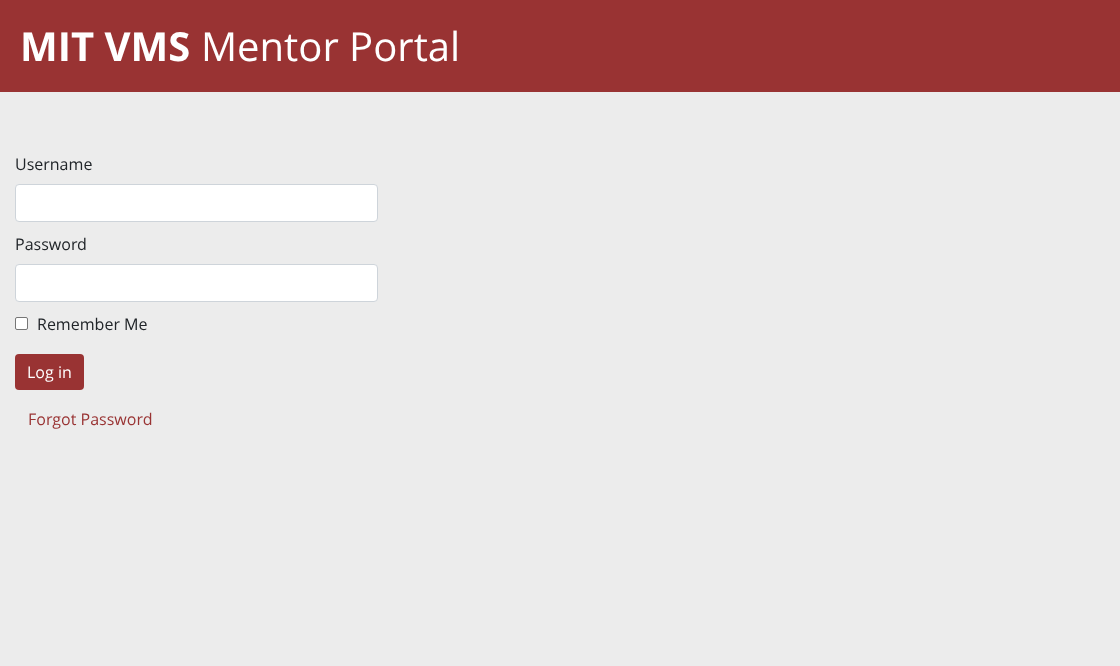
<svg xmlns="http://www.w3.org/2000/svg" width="1120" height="666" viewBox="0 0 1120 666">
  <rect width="100%" height="100%" fill="#ececec"/>
  <path d="M0 0h1120v92H0z" fill="#933"/>
  <rect x="15.5" y="184.5" width="362" height="37" rx="3.5" fill="#fff" stroke="#ced4da"/>
  <rect x="15.5" y="264.5" width="362" height="37" rx="3.5" fill="#fff" stroke="#ced4da"/>
  <rect x="15.5" y="317.5" width="12" height="12" rx="1.5" fill="#fff" stroke="#767676"/>
  <rect x="15" y="354" width="69" height="36" rx="4" fill="#933"/>
  <text x="20" y="61" font-family="Open Sans" font-size="40" font-weight="bold" fill="#fff">MIT VMS</text>
  <text x="201" y="61" font-family="Open Sans" font-size="40" fill="#fff">Mentor Portal</text>
  <g font-family="Open Sans" font-size="16" fill="#212529">
    <text x="15" y="170">Username</text>
    <text x="15" y="250">Password</text>
    <text x="37" y="330">Remember Me</text>
  </g>
  <text x="27" y="378" font-family="Open Sans" font-size="16" fill="#fff">Log in</text>
  <text x="28" y="425" font-family="Open Sans" font-size="16" fill="#933">Forgot Password</text>
</svg>
